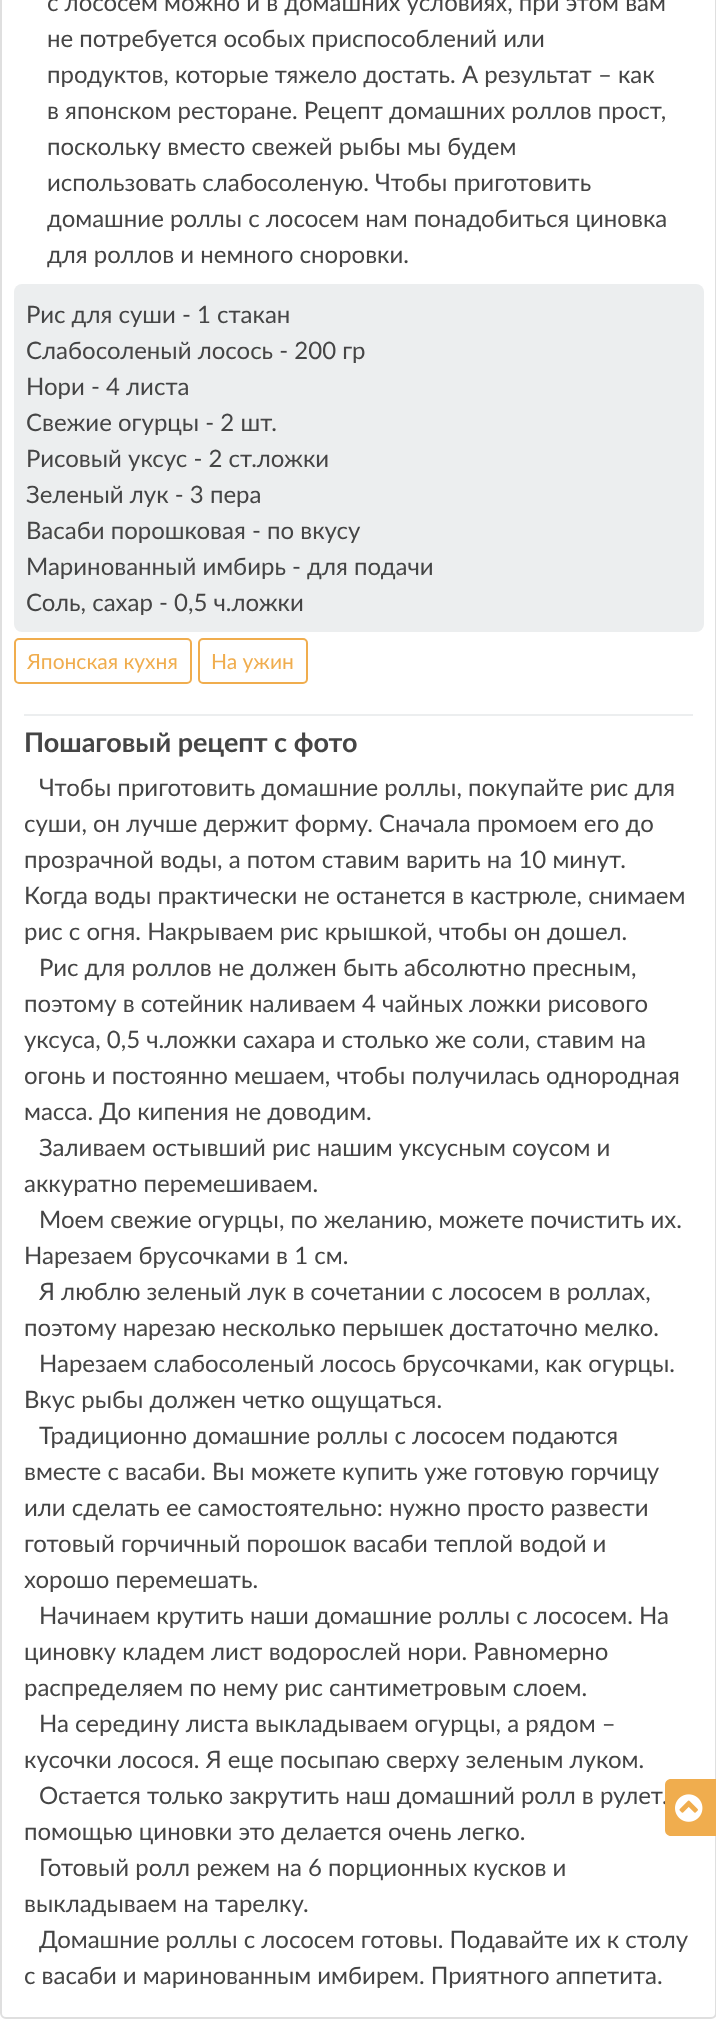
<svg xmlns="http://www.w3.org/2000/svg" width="716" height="2040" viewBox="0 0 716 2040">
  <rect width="100%" height="100%" fill="#fff"/>
  <rect x="1" y="-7" width="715" height="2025" rx="5" fill="none" stroke="#dfdfdf" stroke-width="2"/>
  <rect x="14" y="284" width="690" height="348" rx="8" fill="#eceeef"/>
  <rect x="15" y="639" width="176" height="44" rx="4" fill="none" stroke="#f0ad4e" stroke-width="2"/>
  <rect x="199" y="639" width="108" height="44" rx="4" fill="none" stroke="#f0ad4e" stroke-width="2"/>
  <path d="M24 714h669v2H24z" fill="#eceeef"/>
  <g font-family="Lato" font-size="24" fill="#454545">
    <text x="47" y="11">с лососем можно и в домашних условиях, при этом вам</text>
    <text x="47" y="47">не потребуется особых приспособлений или</text>
    <text x="47" y="83">продуктов, которые тяжело достать. А результат – как</text>
    <text x="47" y="119">в японском ресторане. Рецепт домашних роллов прост,</text>
    <text x="47" y="155">поскольку вместо свежей рыбы мы будем</text>
    <text x="47" y="191">использовать слабосоленую. Чтобы приготовить</text>
    <text x="47" y="227">домашние роллы с лососем нам понадобиться циновка</text>
    <text x="47" y="263">для роллов и немного сноровки.</text>
    <text x="26" y="323">Рис для суши - 1 стакан</text>
    <text x="26" y="359">Слабосоленый лосось - 200 гр</text>
    <text x="26" y="395">Нори - 4 листа</text>
    <text x="26" y="431">Свежие огурцы - 2 шт.</text>
    <text x="26" y="467">Рисовый уксус - 2 ст.ложки</text>
    <text x="26" y="503">Зеленый лук - 3 пера</text>
    <text x="26" y="539">Васаби порошковая - по вкусу</text>
    <text x="26" y="575">Маринованный имбирь - для подачи</text>
    <text x="26" y="611">Соль, сахар - 0,5 ч.ложки</text>
  </g>
  <g font-family="Lato" font-size="21" fill="#f0ad4e">
    <text x="27" y="669">Японская кухня</text>
    <text x="211" y="669">На ужин</text>
  </g>
  <text x="24" y="752" font-family="Lato" font-size="27" font-weight="bold" fill="#454545">Пошаговый рецепт с фото</text>
  <g font-family="Lato" font-size="24" fill="#454545">
    <text x="39" y="796">Чтобы приготовить домашние роллы, покупайте рис для</text>
    <text x="24" y="832">суши, он лучше держит форму. Сначала промоем его до</text>
    <text x="24" y="868">прозрачной воды, а потом ставим варить на 10 минут.</text>
    <text x="24" y="904">Когда воды практически не останется в кастрюле, снимаем</text>
    <text x="24" y="940">рис с огня. Накрываем рис крышкой, чтобы он дошел.</text>
    <text x="39" y="976">Рис для роллов не должен быть абсолютно пресным,</text>
    <text x="24" y="1012">поэтому в сотейник наливаем 4 чайных ложки рисового</text>
    <text x="24" y="1048">уксуса, 0,5 ч.ложки сахара и столько же соли, ставим на</text>
    <text x="24" y="1084">огонь и постоянно мешаем, чтобы получилась однородная</text>
    <text x="24" y="1120">масса. До кипения не доводим.</text>
    <text x="39" y="1156">Заливаем остывший рис нашим уксусным соусом и</text>
    <text x="24" y="1192">аккуратно перемешиваем.</text>
    <text x="39" y="1228">Моем свежие огурцы, по желанию, можете почистить их.</text>
    <text x="24" y="1264">Нарезаем брусочками в 1 см.</text>
    <text x="39" y="1300">Я люблю зеленый лук в сочетании с лососем в роллах,</text>
    <text x="24" y="1336">поэтому нарезаю несколько перышек достаточно мелко.</text>
    <text x="39" y="1372">Нарезаем слабосоленый лосось брусочками, как огурцы.</text>
    <text x="24" y="1408">Вкус рыбы должен четко ощущаться.</text>
    <text x="39" y="1444">Традиционно домашние роллы с лососем подаются</text>
    <text x="24" y="1480">вместе с васаби. Вы можете купить уже готовую горчицу</text>
    <text x="24" y="1516">или сделать ее самостоятельно: нужно просто развести</text>
    <text x="24" y="1552">готовый горчичный порошок васаби теплой водой и</text>
    <text x="24" y="1588">хорошо перемешать.</text>
    <text x="39" y="1624">Начинаем крутить наши домашние роллы с лососем. На</text>
    <text x="24" y="1660">циновку кладем лист водорослей нори. Равномерно</text>
    <text x="24" y="1696">распределяем по нему рис сантиметровым слоем.</text>
    <text x="39" y="1732">На середину листа выкладываем огурцы, а рядом –</text>
    <text x="24" y="1768">кусочки лосося. Я еще посыпаю сверху зеленым луком.</text>
    <text x="39" y="1804">Остается только закрутить наш домашний ролл в рулет.</text>
    <text x="24" y="1840">помощью циновки это делается очень легко.</text>
    <text x="39" y="1876">Готовый ролл режем на 6 порционных кусков и</text>
    <text x="24" y="1912">выкладываем на тарелку.</text>
    <text x="39" y="1948">Домашние роллы с лососем готовы. Подавайте их к столу</text>
    <text x="24" y="1984">с васаби и маринованным имбирем. Приятного аппетита.</text>
  </g>
  <path d="M671 1779H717V1836H671C667.5 1836 665 1833.5 665 1830V1785C665 1781.5 667.5 1779 671 1779Z" fill="#f0ad4e"/>
  <image x="675" y="1794" width="28" height="28" href="img/1.png"/>
</svg>
